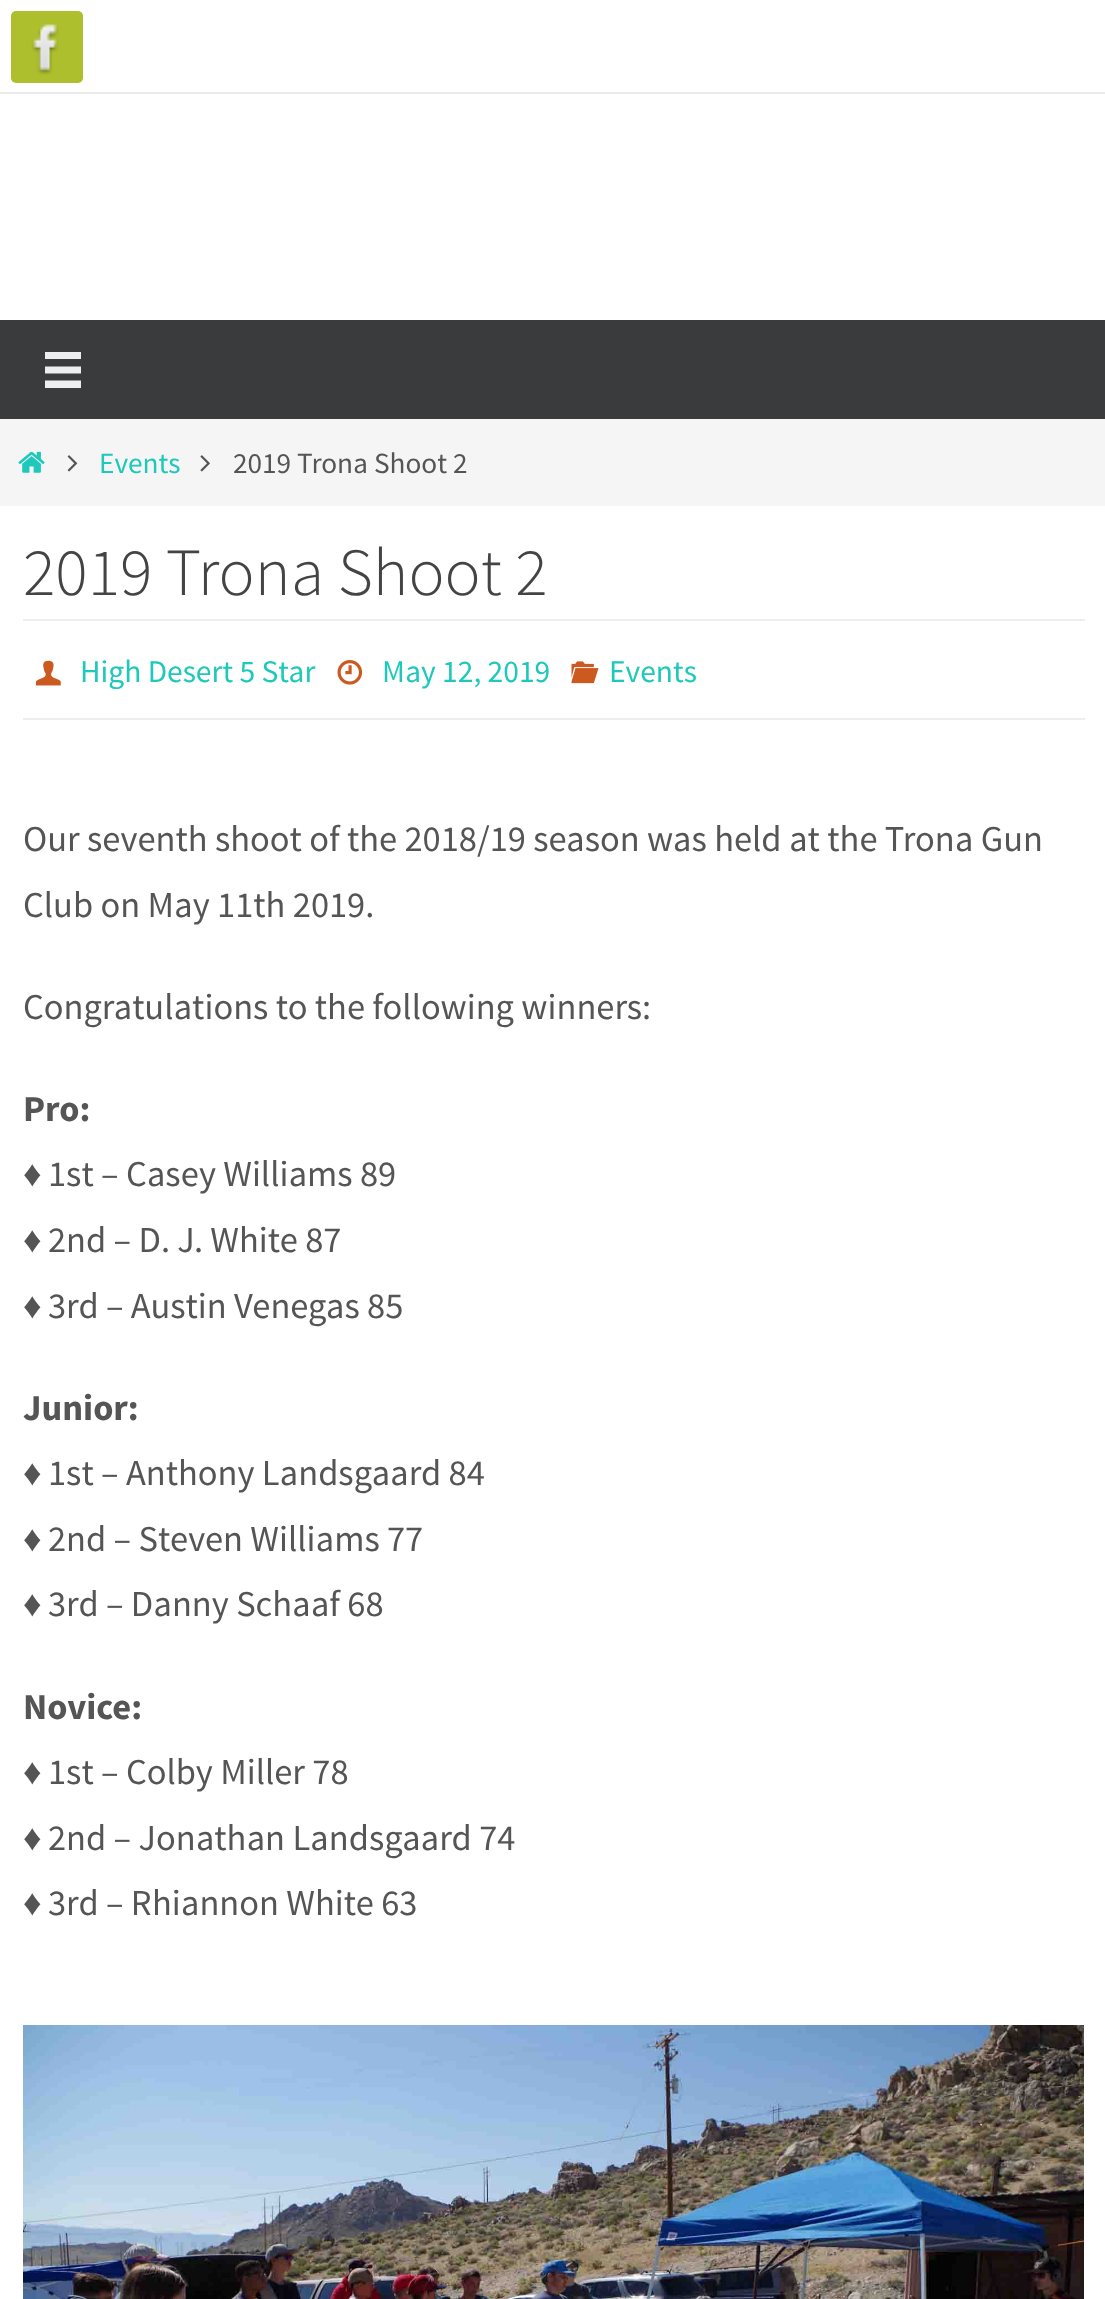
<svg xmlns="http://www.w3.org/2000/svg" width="1105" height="2299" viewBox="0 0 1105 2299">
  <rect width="100%" height="100%" fill="#fff"/>
  <path d="M0 92h1105v2H0z" fill="#ebebeb"/>
  <rect x="11" y="11" width="72" height="72" rx="5" fill="#adbf2d"/>
  <image x="31" y="24" width="28" height="51" href="img/1.png"/>
  <path d="M0 320h1105v99H0z" fill="#3a3b3d"/>
  <path d="M45 352V359H81V352ZM45 366.5V373.5H81V366.5ZM45 380.5V388H81V380.5Z" fill="#eee"/>
  <path d="M0 419h1105v87H0z" fill="#f5f5f5"/>
  <image x="18" y="451" width="27" height="22" href="img/2.png"/>
  <image x="67" y="455" width="11" height="17" href="img/3.png"/>
  <image x="200" y="455" width="10" height="17" href="img/4.png"/>
  <path d="M23 619h1062v2H23z" fill="#eee"/>
  <path d="M23 718h1062v2H23z" fill="#eee"/>
  <image x="36" y="660" width="25" height="26" href="img/5.png"/>
  <image x="337" y="660" width="26" height="25" href="img/6.png"/>
  <image x="571" y="661" width="28" height="23" href="img/7.png"/>
  <image x="23" y="2025" width="1061" height="274" href="img/8.png"/>
  <text x="99" y="473" font-family="Source Sans Pro" font-size="29.25" fill="#1ec8bb">Events</text>
  <text x="233" y="473" font-family="Source Sans Pro" font-size="29.25" fill="#555">2019 Trona Shoot 2</text>
  <text x="23" y="595" font-family="Source Sans Pro" font-size="67.5" font-weight="300" fill="#444">2019 Trona Shoot 2</text>
  <g font-family="Source Sans Pro" font-size="31.5" fill="#1ec8bb">
    <text x="80" y="682">High Desert 5 Star</text>
    <text x="382" y="682">May 12, 2019</text>
    <text x="609" y="682">Events</text>
  </g>
  <g font-family="Source Sans Pro" font-size="36.45" fill="#555">
    <text x="23" y="851">Our seventh shoot of the 2018/19 season was held at the Trona Gun</text>
    <text x="23" y="917">Club on May 11th 2019.</text>
    <text x="23" y="1019">Congratulations to the following winners:</text>
  </g>
  <text x="23" y="1121" font-family="Source Sans Pro" font-size="36.45" font-weight="bold" fill="#555">Pro:</text>
  <text x="23" y="1186" font-family="Liberation Serif" font-size="36.45" fill="#555">♦</text>
  <text x="48" y="1186" font-family="Source Sans Pro" font-size="36.45" fill="#555">1st – Casey Williams 89</text>
  <text x="23" y="1252" font-family="Liberation Serif" font-size="36.45" fill="#555">♦</text>
  <text x="48" y="1252" font-family="Source Sans Pro" font-size="36.45" fill="#555">2nd – D. J. White 87</text>
  <text x="23" y="1318" font-family="Liberation Serif" font-size="36.45" fill="#555">♦</text>
  <text x="48" y="1318" font-family="Source Sans Pro" font-size="36.45" fill="#555">3rd – Austin Venegas 85</text>
  <text x="23" y="1420" font-family="Source Sans Pro" font-size="36.45" font-weight="bold" fill="#555">Junior:</text>
  <text x="23" y="1485" font-family="Liberation Serif" font-size="36.45" fill="#555">♦</text>
  <text x="48" y="1485" font-family="Source Sans Pro" font-size="36.45" fill="#555">1st – Anthony Landsgaard 84</text>
  <text x="23" y="1551" font-family="Liberation Serif" font-size="36.45" fill="#555">♦</text>
  <text x="48" y="1551" font-family="Source Sans Pro" font-size="36.45" fill="#555">2nd – Steven Williams 77</text>
  <text x="23" y="1616" font-family="Liberation Serif" font-size="36.45" fill="#555">♦</text>
  <text x="48" y="1616" font-family="Source Sans Pro" font-size="36.45" fill="#555">3rd – Danny Schaaf 68</text>
  <text x="23" y="1719" font-family="Source Sans Pro" font-size="36.45" font-weight="bold" fill="#555">Novice:</text>
  <text x="23" y="1784" font-family="Liberation Serif" font-size="36.45" fill="#555">♦</text>
  <text x="48" y="1784" font-family="Source Sans Pro" font-size="36.45" fill="#555">1st – Colby Miller 78</text>
  <text x="23" y="1850" font-family="Liberation Serif" font-size="36.45" fill="#555">♦</text>
  <text x="48" y="1850" font-family="Source Sans Pro" font-size="36.45" fill="#555">2nd – Jonathan Landsgaard 74</text>
  <text x="23" y="1915" font-family="Liberation Serif" font-size="36.45" fill="#555">♦</text>
  <text x="48" y="1915" font-family="Source Sans Pro" font-size="36.45" fill="#555">3rd – Rhiannon White 63</text>
</svg>
